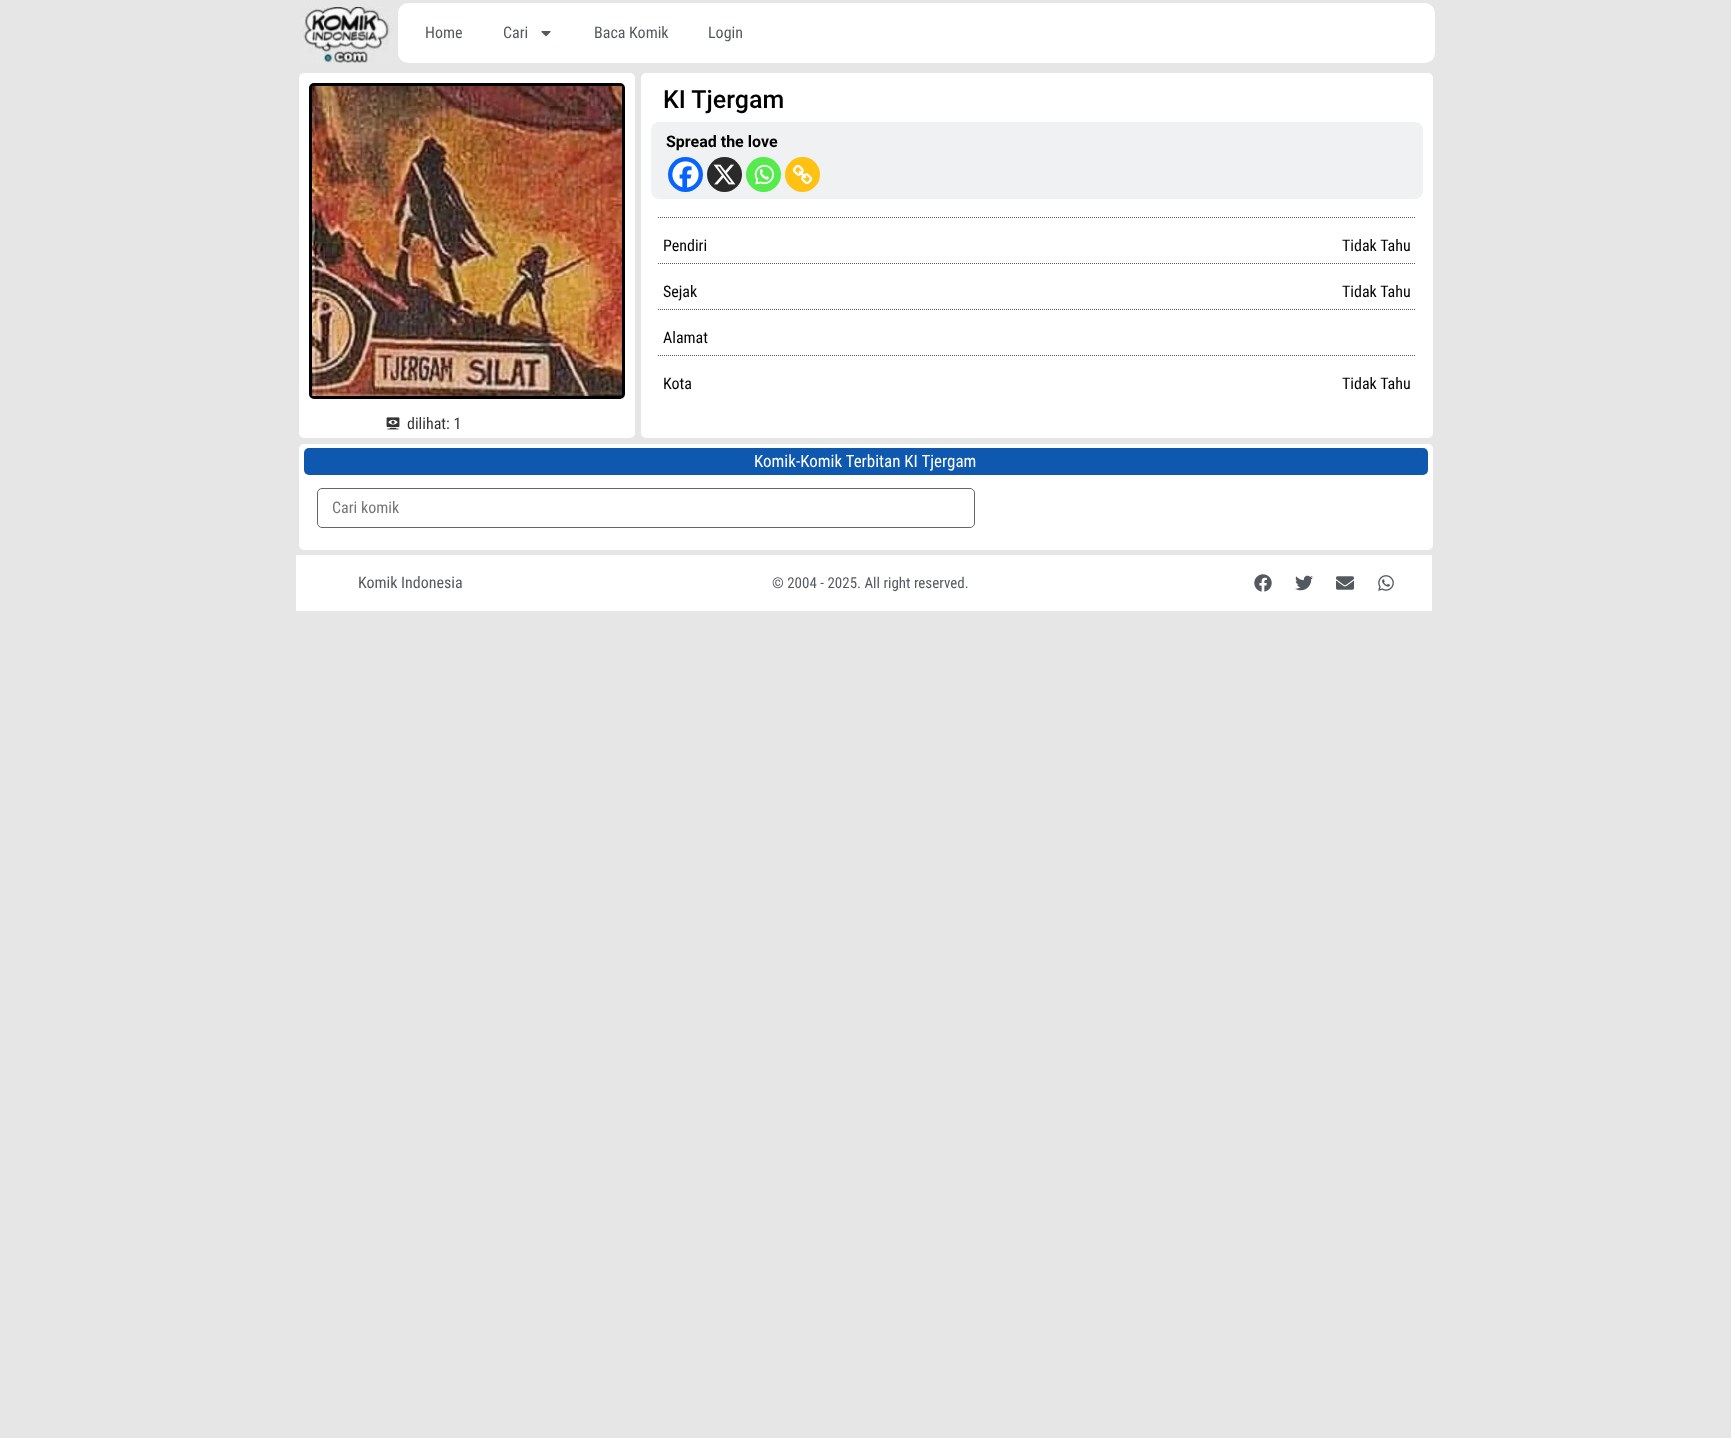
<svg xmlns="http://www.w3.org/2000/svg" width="1731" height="1438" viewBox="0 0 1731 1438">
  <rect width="100%" height="100%" fill="#e6e6e6"/>
  <image x="301" y="7" width="92" height="56" href="img/1.png"/>
  <rect x="398" y="3" width="1037" height="60" rx="10" fill="#fff"/>
  <image x="541" y="31" width="10" height="6" href="img/2.png"/>
  <rect x="641" y="73" width="792" height="365" rx="5" fill="#fff"/>
  <rect x="651" y="122" width="772" height="77" rx="8" fill="#f0f1f2"/>
  <circle cx="685.5" cy="174.5" r="17.5" fill="#0765fe"/>
  <image x="672" y="161" width="27" height="27" href="img/3.png"/>
  <circle cx="724.5" cy="174.5" r="17.5" fill="#2a2a2a"/>
  <image x="713" y="164" width="23" height="21" href="img/4.png"/>
  <circle cx="763.5" cy="174.5" r="17.5" fill="#55eb4c"/>
  <image x="754" y="164" width="20" height="21" href="img/5.png"/>
  <circle cx="802.5" cy="174.5" r="17.5" fill="#ffc112"/>
  <image x="792" y="164" width="21" height="21" href="img/6.png"/>
  <path d="M658 217.5H1415" fill="none" stroke="#54595f" stroke-dasharray="1 1"/>
  <path d="M658 263.5H1415" fill="none" stroke="#54595f" stroke-dasharray="1 1"/>
  <path d="M658 309.5H1415" fill="none" stroke="#54595f" stroke-dasharray="1 1"/>
  <path d="M658 355.5H1415" fill="none" stroke="#54595f" stroke-dasharray="1 1"/>
  <rect x="299" y="73" width="336" height="365" rx="5" fill="#fff"/>
  <rect x="310.5" y="84.5" width="313" height="313" rx="3.5" fill="none" stroke="#000" stroke-width="3"/>
  <image x="312" y="86" width="310" height="310" href="img/7.png"/>
  <image x="386" y="417" width="14" height="13" href="img/8.png"/>
  <rect x="299" y="444" width="1134" height="106" rx="5" fill="#fff"/>
  <rect x="304" y="448" width="1124" height="27" rx="5" fill="#0f58af"/>
  <rect x="317.5" y="488.5" width="657" height="39" rx="4.5" fill="none" stroke="#666"/>
  <path d="M296 555h1136v56H296z" fill="#fff"/>
  <image x="1254" y="574" width="18" height="18" href="img/9.png"/>
  <image x="1295" y="575" width="18" height="16" href="img/10.png"/>
  <image x="1336" y="576" width="18" height="14" href="img/11.png"/>
  <image x="1378" y="575" width="16" height="16" href="img/12.png"/>
  <g font-family="Roboto Condensed" font-size="16" fill="#54595f">
    <text x="425" y="38">Home</text>
    <text x="503" y="38">Cari</text>
    <text x="594" y="38">Baca Komik</text>
    <text x="708" y="38">Login</text>
  </g>
  <text x="663" y="108" font-family="Roboto" font-size="25" font-weight="500" fill="#000">KI Tjergam</text>
  <text x="666" y="147" font-family="Roboto" font-size="16" font-weight="bold" fill="#000">Spread the love</text>
  <g font-family="Roboto Condensed" font-size="16" fill="#000">
    <text x="663" y="251">Pendiri</text>
    <text x="1342" y="251">Tidak Tahu</text>
    <text x="663" y="297">Sejak</text>
    <text x="1342" y="297">Tidak Tahu</text>
    <text x="663" y="343">Alamat</text>
    <text x="663" y="389">Kota</text>
    <text x="1342" y="389">Tidak Tahu</text>
  </g>
  <text x="407" y="429" font-family="Roboto Condensed" font-size="16" fill="#333">dilihat: 1</text>
  <text x="754" y="467" font-family="Roboto Condensed" font-size="17" fill="#fff">Komik-Komik Terbitan KI Tjergam</text>
  <text x="332" y="513" font-family="Roboto Condensed" font-size="16" fill="#757575">Cari komik</text>
  <text x="358" y="588" font-family="Roboto Condensed" font-size="16" fill="#54595f">Komik Indonesia</text>
  <text x="772" y="588" font-family="Roboto Condensed" font-size="15" fill="#54595f">© 2004 - 2025. All right reserved.</text>
</svg>
